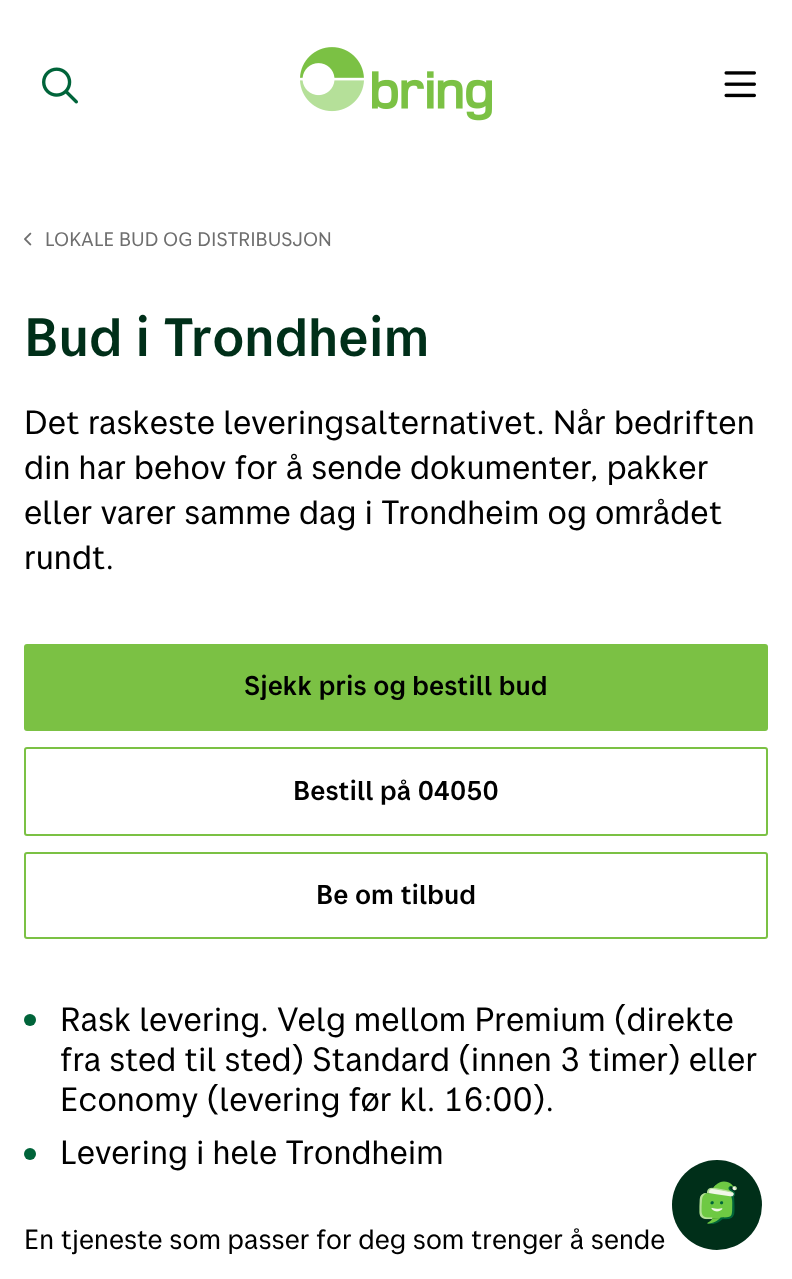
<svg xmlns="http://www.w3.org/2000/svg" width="792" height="1279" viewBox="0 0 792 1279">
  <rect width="100%" height="100%" fill="#fff"/>
  <image x="300" y="47" width="192" height="74" href="img/1.png"/>
  <image x="42" y="67" width="36" height="37" href="img/2.png"/>
  <image x="724" y="71" width="32" height="27" href="img/3.png"/>
  <image x="24" y="232" width="8" height="14" href="img/4.png"/>
  <rect x="24" y="644" width="744" height="87" rx="3" fill="#7bc144"/>
  <rect x="25" y="748" width="742" height="87" rx="2" fill="none" stroke="#7bc144" stroke-width="2"/>
  <rect x="25" y="853" width="742" height="85" rx="2" fill="none" stroke="#7bc144" stroke-width="2"/>
  <circle cx="30" cy="1020" r="6" fill="#00643a"/>
  <circle cx="30" cy="1154" r="6" fill="#00643a"/>
  <circle cx="717" cy="1205" r="45" fill="#002f19"/>
  <image x="699" y="1181" width="38" height="43" href="img/5.png"/>
  <text x="45" y="246" font-family="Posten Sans" font-size="19.5" fill="#6e6e6e">LOKALE BUD OG DISTRIBUSJON</text>
  <text x="24" y="356" font-family="Posten Sans" font-size="54" font-weight="500" fill="#002f19">Bud i Trondheim</text>
  <g font-family="Posten Sans" font-size="33.75" fill="#000">
    <text x="24" y="434">Det raskeste leveringsalternativet. Når bedriften</text>
    <text x="24" y="479">din har behov for å sende dokumenter, pakker</text>
    <text x="24" y="524">eller varer samme dag i Trondheim og området</text>
    <text x="24" y="569">rundt.</text>
  </g>
  <g font-family="Posten Sans" font-size="27" font-weight="500" fill="#000">
    <text x="244" y="695">Sjekk pris og bestill bud</text>
    <text x="293" y="800">Bestill på 04050</text>
    <text x="316" y="904">Be om tilbud</text>
  </g>
  <g font-family="Posten Sans" font-size="33.75" fill="#000">
    <text x="60" y="1031">Rask levering. Velg mellom Premium (direkte</text>
    <text x="60" y="1071">fra sted til sted) Standard (innen 3 timer) eller</text>
    <text x="60" y="1111">Economy (levering før kl. 16:00).</text>
    <text x="60" y="1164">Levering i hele Trondheim</text>
  </g>
  <text x="24" y="1249" font-family="Posten Sans" font-size="27.75" fill="#000">En tjeneste som passer for deg som trenger å sende</text>
</svg>
